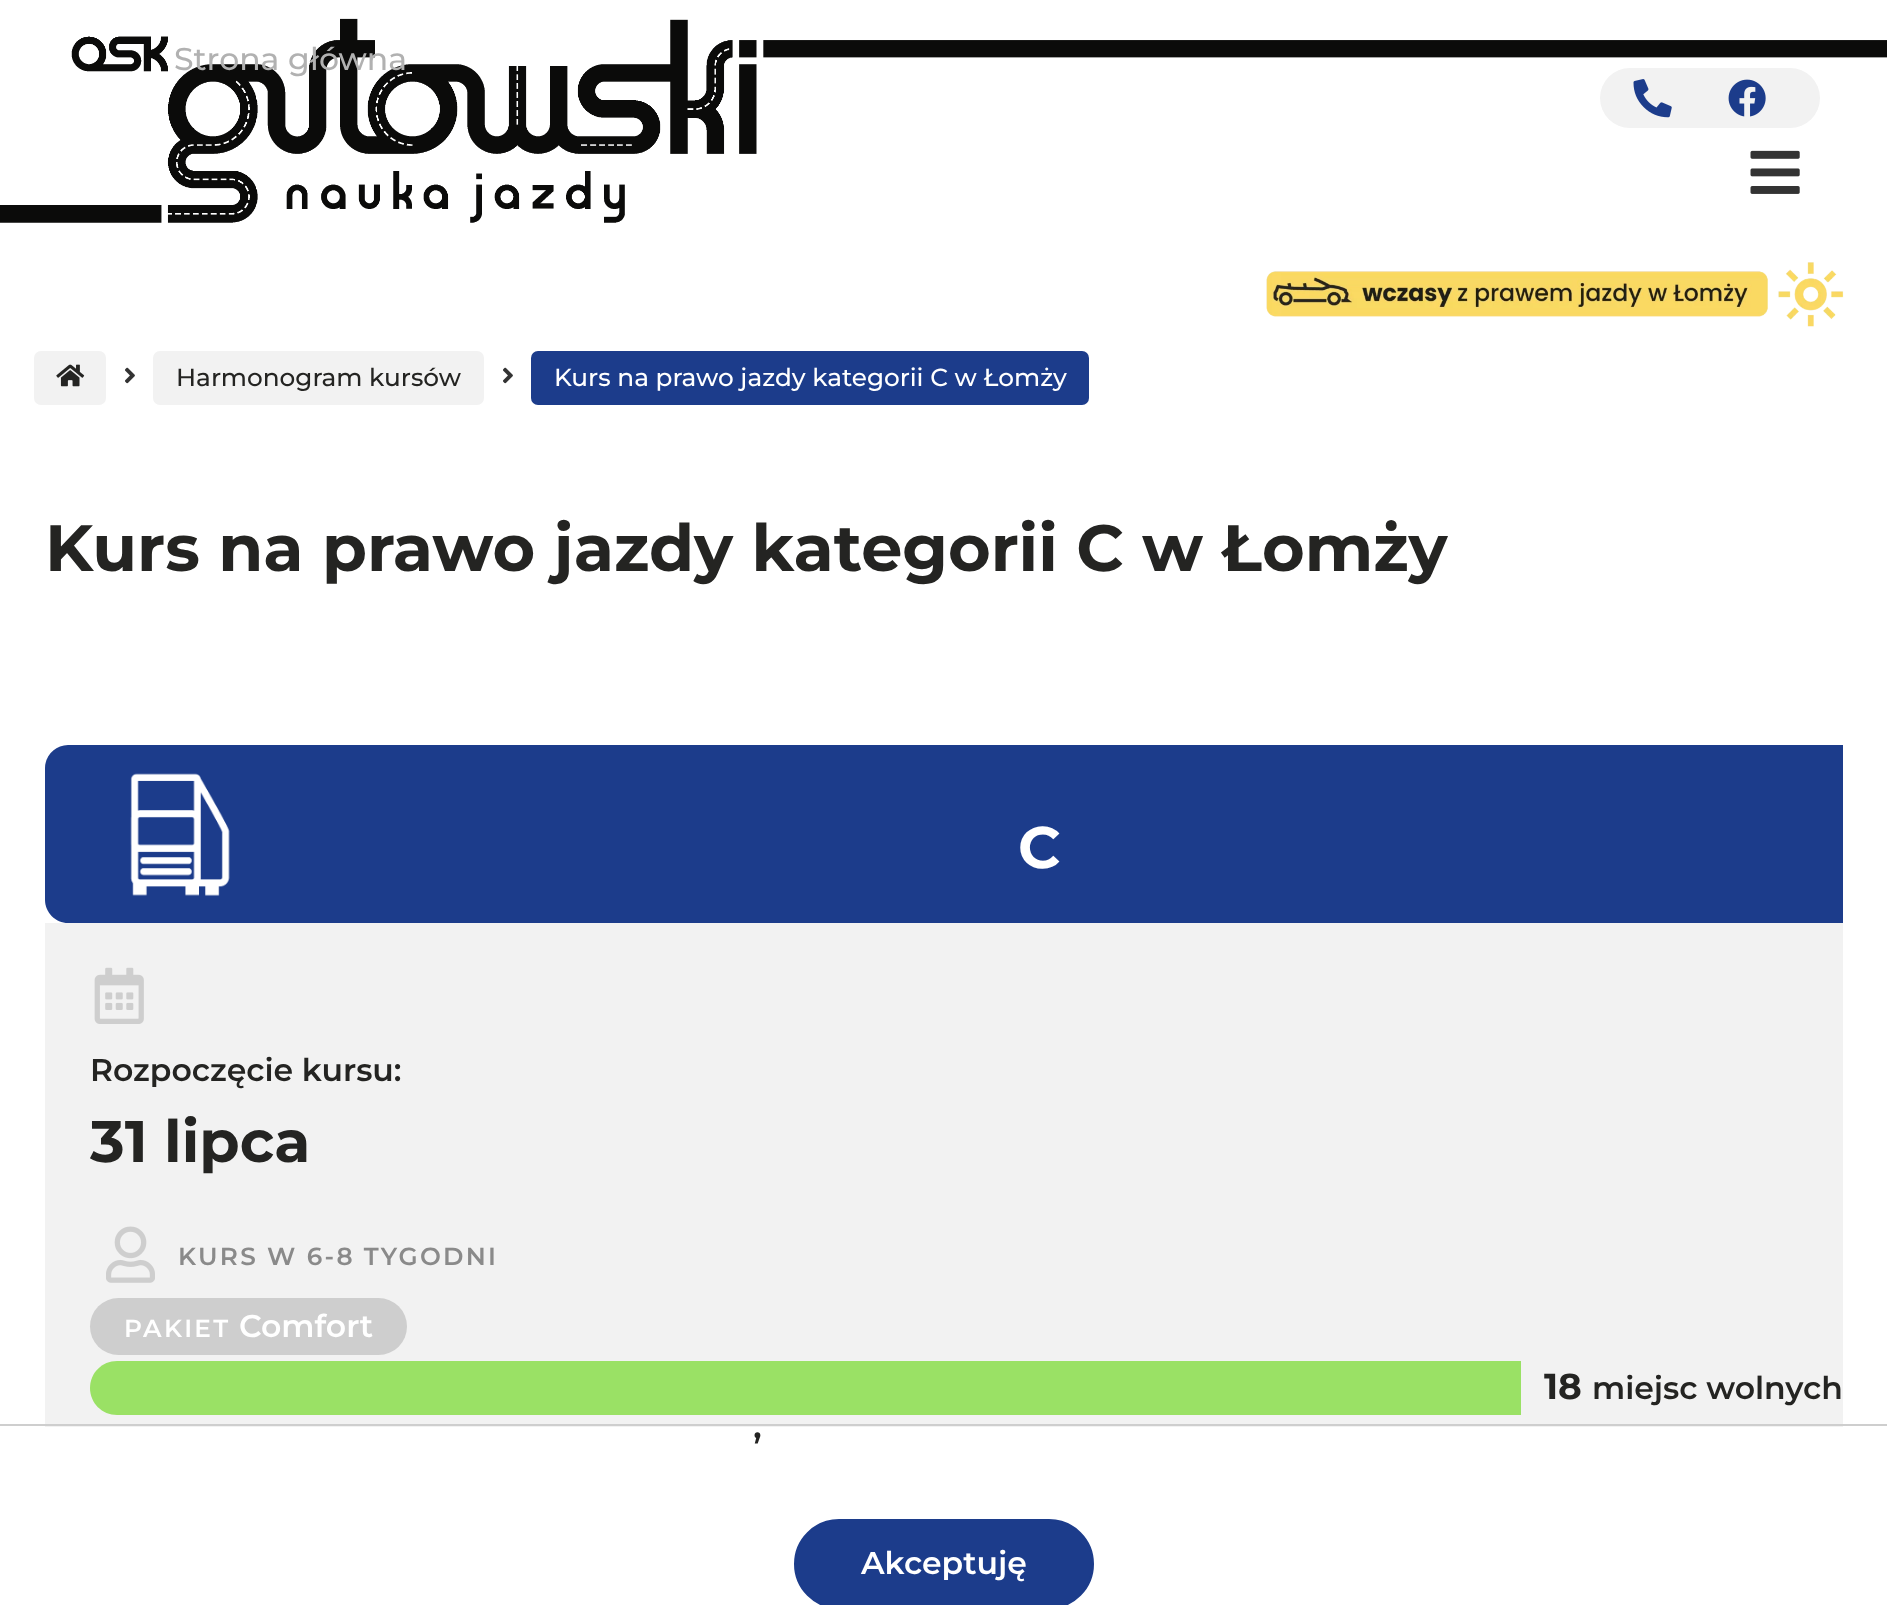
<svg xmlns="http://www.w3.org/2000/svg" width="1887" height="1605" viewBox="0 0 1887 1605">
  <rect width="100%" height="100%" fill="#fff"/>
  <image x="0" y="18" width="1887" height="205" href="img/1.png"/>
  <rect x="1600" y="68" width="220" height="60" rx="30" fill="#f2f2f2"/>
  <image x="1633" y="79" width="39" height="39" href="img/2.png"/>
  <image x="1728" y="79" width="38" height="38" href="img/3.png"/>
  <image x="1750" y="150" width="50" height="44" href="img/4.png"/>
  <image x="1266" y="262" width="578" height="65" href="img/5.png"/>
  <rect x="34" y="351" width="72" height="54" rx="7" fill="#f2f2f2"/>
  <image x="56" y="364" width="29" height="23" href="img/6.png"/>
  <image x="125" y="367" width="10" height="17" href="img/7.png"/>
  <rect x="153" y="351" width="331" height="54" rx="7" fill="#f2f2f2"/>
  <image x="503" y="367" width="10" height="17" href="img/7.png"/>
  <rect x="531" y="351" width="558" height="54" rx="7" fill="#1c3c8b"/>
  <path d="M68 745H1843V923H68C55.5 923 45 912.5 45 900V768C45 755.5 55.5 745 68 745Z" fill="#1c3c8b"/>
  <image x="130" y="773" width="100" height="123" href="img/8.png"/>
  <path d="M45 923h1798v504H45z" fill="#f2f2f2"/>
  <image x="94" y="967" width="50" height="57" href="img/9.png"/>
  <image x="106" y="1226" width="49" height="57" href="img/10.png"/>
  <rect x="90" y="1298" width="317" height="57" rx="28.5" fill="#cecece"/>
  <path d="M117 1361H1521V1415H117C102 1415 90 1403 90 1388C90 1373 102 1361 117 1361Z" fill="#9ae165"/>
  <path d="M0 1424h1887v2H0z" fill="#cecece"/>
  <rect x="795" y="1520" width="298" height="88" rx="44" fill="#1c3c8b" stroke="#1c3c8b" stroke-width="2"/>
  <text x="174" y="70" font-family="Montserrat" font-size="31.5" font-weight="500" fill="#b1b1b1">Strona główna</text>
  <text x="176" y="386" font-family="Montserrat" font-size="24.75" font-weight="500" fill="#242422">Harmonogram kursów</text>
  <text x="554" y="386" font-family="Montserrat" font-size="24.75" font-weight="500" fill="#fff">Kurs na prawo jazdy kategorii C w Łomży</text>
  <text x="45" y="571" font-family="Montserrat" font-size="65.25" font-weight="bold" fill="#242422">Kurs na prawo jazdy kategorii C w Łomży</text>
  <text x="1018" y="868" font-family="Montserrat" font-size="58.5" font-weight="bold" fill="#fff">C</text>
  <text x="90" y="1081" font-family="Montserrat" font-size="31.5" font-weight="600" fill="#242422">Rozpoczęcie kursu:</text>
  <text x="90" y="1162" font-family="Montserrat" font-size="58.5" font-weight="bold" fill="#242422">31 lipca</text>
  <text x="178" y="1265" font-family="Montserrat" font-size="24.75" font-weight="600" letter-spacing="2.25" fill="#8a8a8a">KURS W 6-8 TYGODNI</text>
  <text x="124" y="1337" font-family="Montserrat" font-size="24.75" font-weight="600" letter-spacing="2.25" fill="#fff">PAKIET</text>
  <text x="239" y="1337" font-family="Montserrat" font-size="31.5" font-weight="600" fill="#fff">Comfort</text>
  <text x="1544" y="1399" font-family="Montserrat" font-size="36" font-weight="bold" fill="#242422">18</text>
  <text x="1592" y="1399" font-family="Montserrat" font-size="31.5" font-weight="600" fill="#242422">miejsc wolnych</text>
  <text x="753" y="1438" font-family="Montserrat" font-size="36" font-weight="600" fill="#242422">,</text>
  <text x="861" y="1574" font-family="Montserrat" font-size="31.5" font-weight="600" fill="#fff">Akceptuję</text>
</svg>
